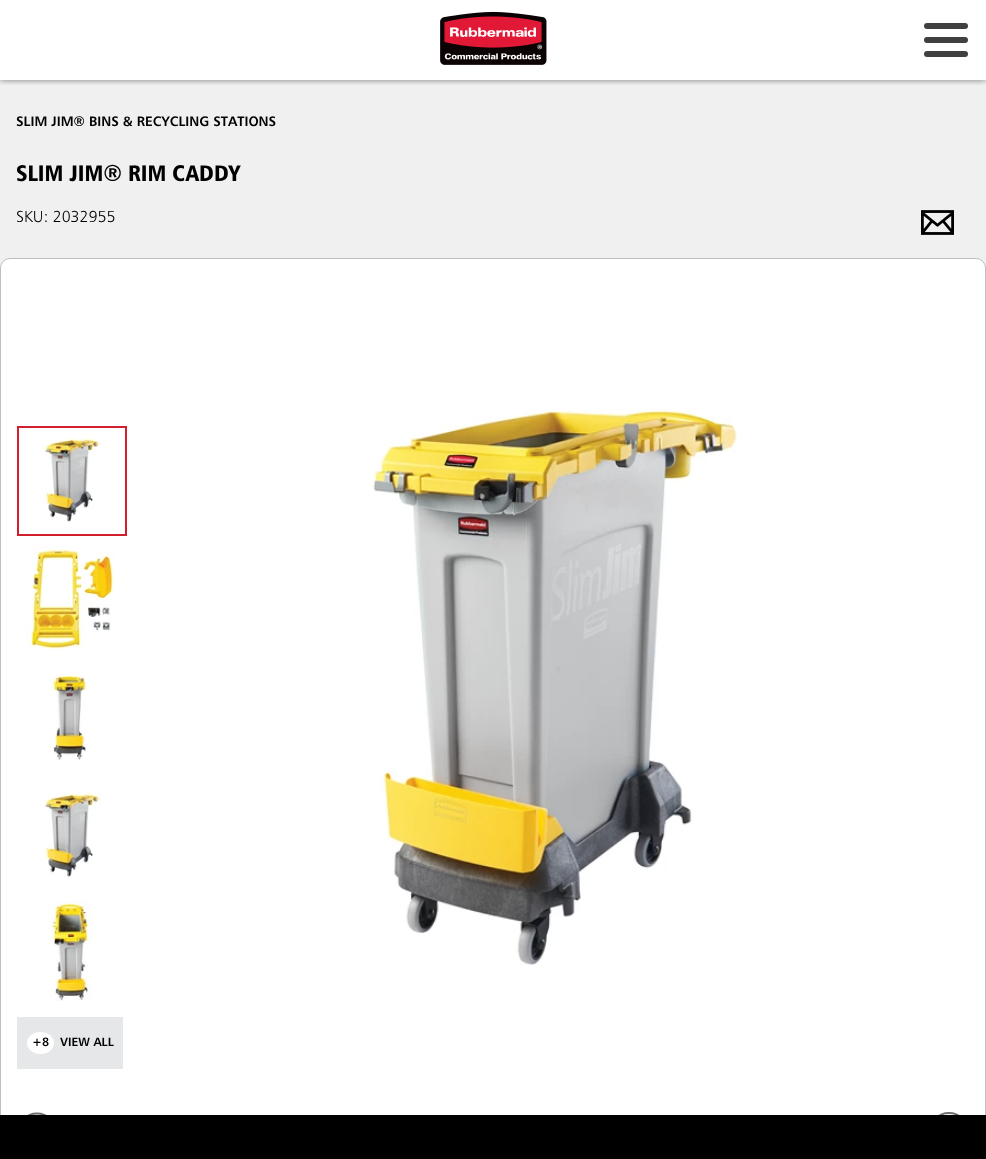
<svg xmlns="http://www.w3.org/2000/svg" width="986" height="1159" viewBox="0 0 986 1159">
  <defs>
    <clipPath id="clip1"><path d="M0 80h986v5H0z"/></clipPath>
  </defs>
  <rect width="100%" height="100%" fill="#fff"/>
  <path d="M0 80h986v188H0z" fill="#f0f0f0"/>
  <g clip-path="url(#clip1)">
    <path d="M0 0h986v80H0z" fill="#00000080" filter="blur(3px)"/>
  </g>
  <image x="440" y="11" width="107" height="54" href="img/1.png"/>
  <rect x="924" y="23" width="44" height="6" rx="3" fill="#404040"/>
  <rect x="924" y="37" width="44" height="6" rx="3" fill="#404040"/>
  <rect x="924" y="51" width="44" height="6" rx="3" fill="#404040"/>
  <rect x="0.5" y="258.5" width="985" height="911" rx="9.5" fill="#fff" stroke="#bfbfbf"/>
  <path d="M37 1151.5C26.5 1151.5 18 1143 18 1132.5C18 1122 26.5 1113.5 37 1113.5C47.5 1113.5 56 1122 56 1132.5C56 1143 47.5 1151.5 37 1151.5Z" fill="none" stroke="#6d6e70" stroke-width="2"/>
  <circle cx="949" cy="1132" r="19" fill="none" stroke="#6d6e70" stroke-width="2"/>
  <path d="M0 1115h986v44H0z" fill="#000"/>
  <image x="921" y="210" width="33" height="25" href="img/2.png"/>
  <image x="372" y="409" width="366" height="556" href="img/3.png"/>
  <path d="M18 427h108v108H18z" fill="none" stroke="#d11f2e" stroke-width="2"/>
  <image x="44" y="438" width="57" height="84" href="img/4.png"/>
  <image x="26" y="546" width="89" height="103" href="img/5.png"/>
  <image x="49" y="674" width="38" height="86" href="img/6.png"/>
  <image x="44" y="793" width="57" height="84" href="img/4.png"/>
  <image x="48" y="901" width="45" height="100" href="img/7.png"/>
  <path d="M17 1017h106v52H17z" fill="#e6e7e8"/>
  <ellipse cx="40.5" cy="1043" rx="13.5" ry="11" fill="#fff"/>
  <text x="16" y="126" font-family="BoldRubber" font-size="13.6" fill="#000">SLIM JIM® BINS &amp; RECYCLING STATIONS</text>
  <text x="16" y="181" font-family="'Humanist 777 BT'" font-size="22.5" font-weight="900" fill="#000">SLIM JIM® RIM CADDY</text>
  <text x="16" y="222" font-family="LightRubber" font-size="16" fill="#000">SKU: 2032955</text>
  <g font-family="BoldRubber" font-size="12" fill="#000">
    <text x="32" y="1046">+8</text>
    <text x="60" y="1046">VIEW ALL</text>
  </g>
</svg>
